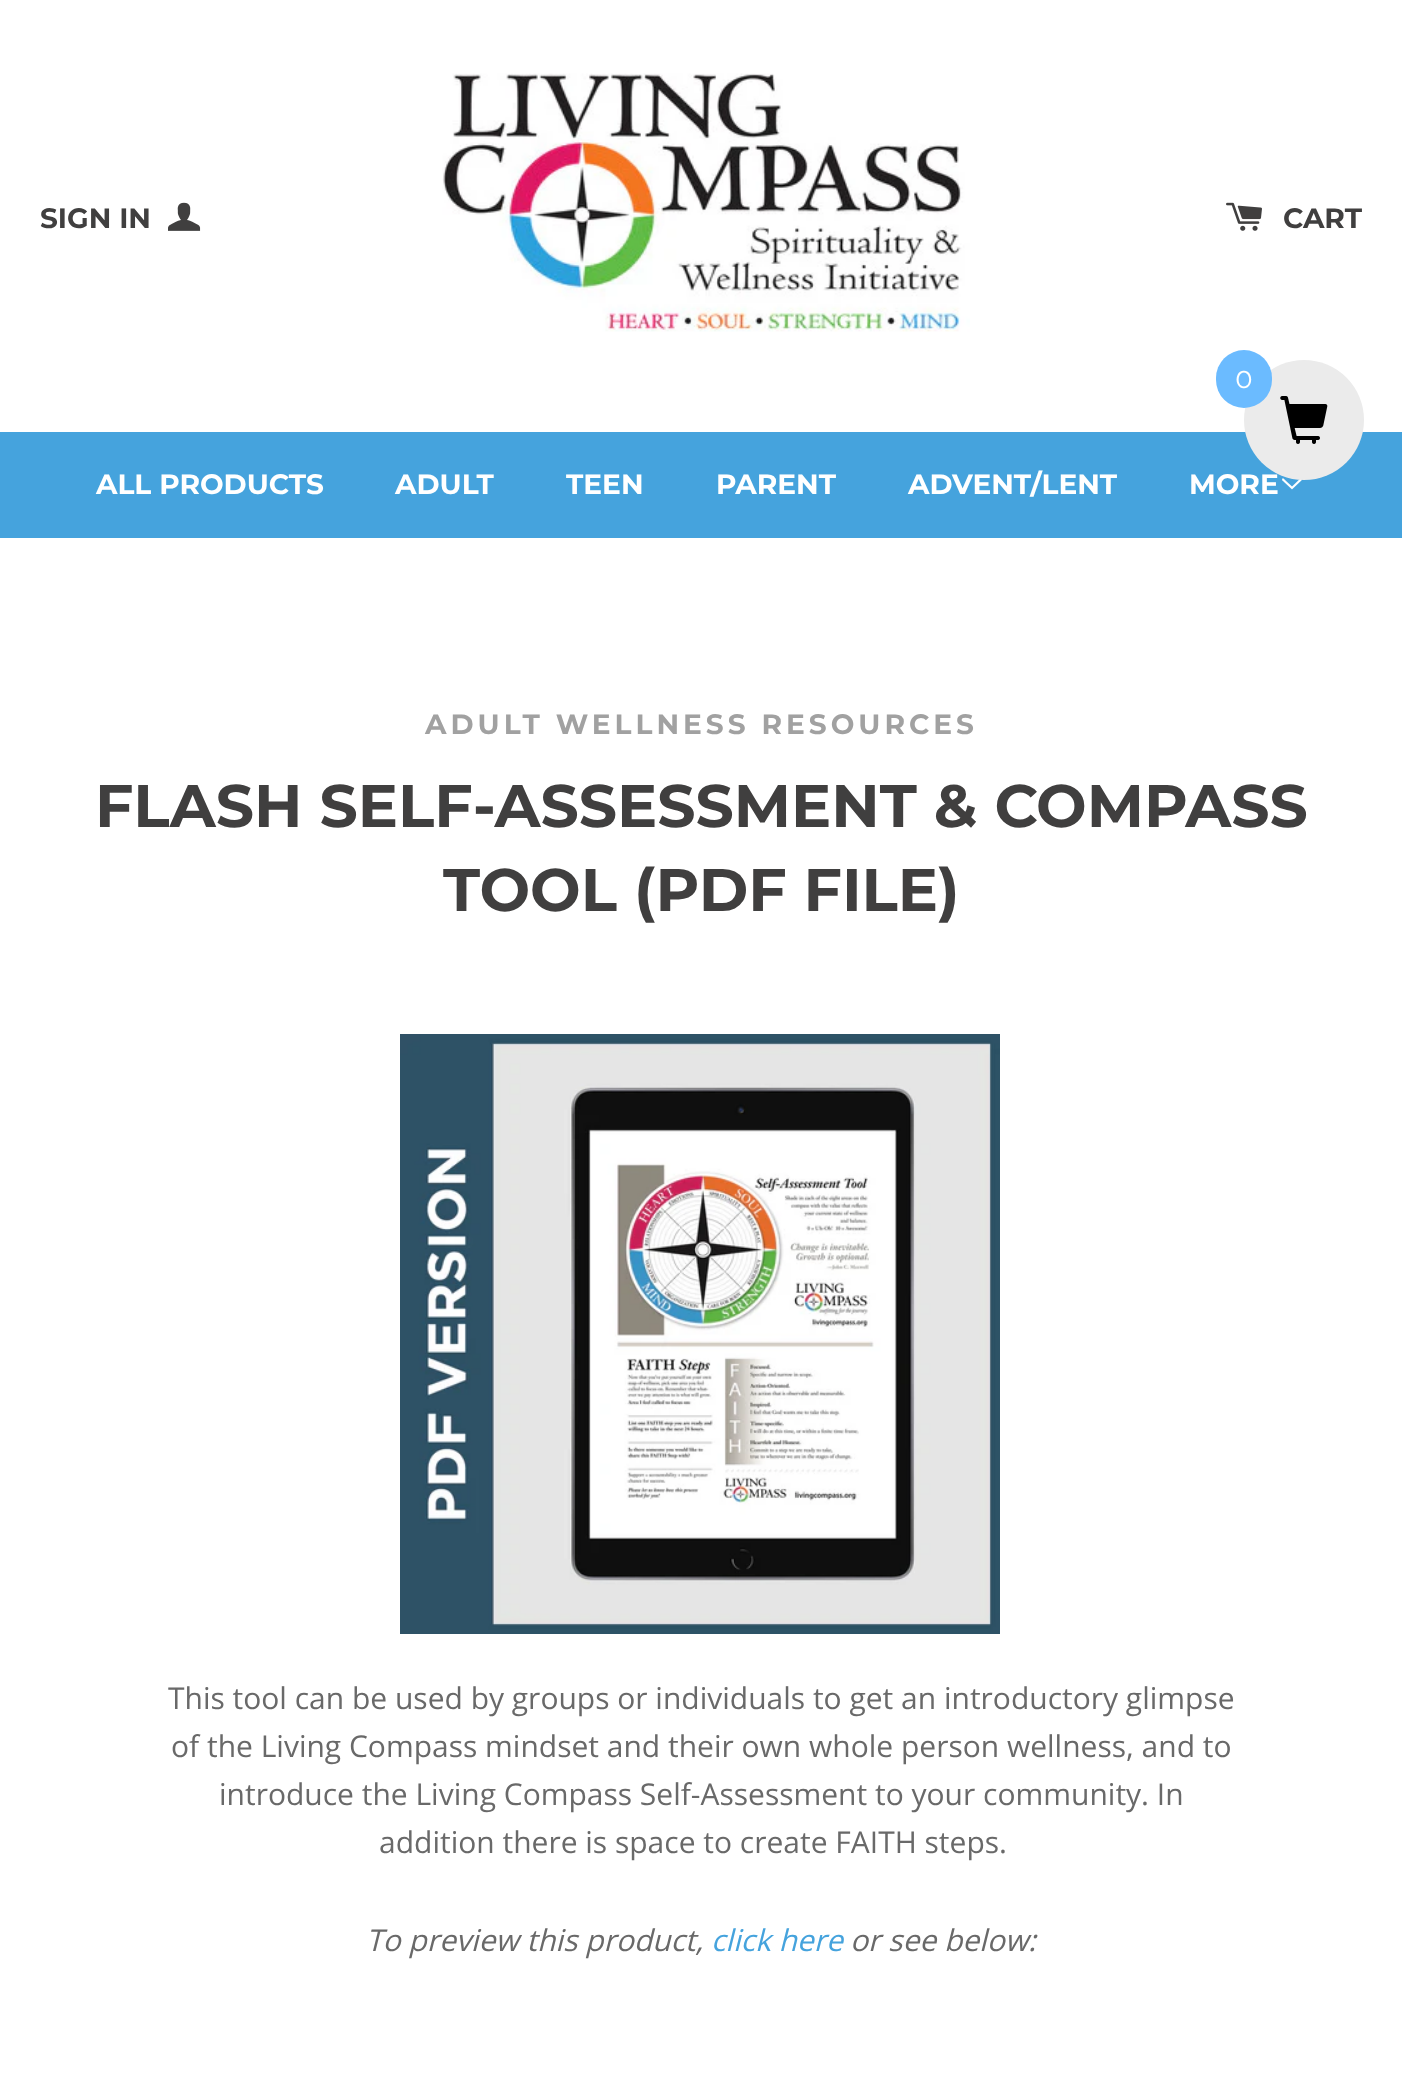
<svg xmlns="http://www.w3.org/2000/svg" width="1402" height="2100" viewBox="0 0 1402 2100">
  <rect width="100%" height="100%" fill="#fff"/>
  <image x="168" y="202" width="33" height="29" href="img/1.png"/>
  <image x="442" y="73" width="528" height="259" href="img/2.png"/>
  <image x="1226" y="202" width="36" height="29" href="img/3.png"/>
  <path d="M0 432h1402v106H0z" fill="#45a3dd"/>
  <image x="1282" y="478" width="20" height="12" href="img/5.png"/>
  <image x="400" y="1034" width="600" height="600" href="img/6.png"/>
  <g font-family="Montserrat" font-size="28" font-weight="100" fill="#403f3f">
    <text x="40" y="228">SIGN IN</text>
    <text x="1283" y="228">CART</text>
  </g>
  <g font-family="Montserrat" font-size="28" font-weight="100" fill="#fff">
    <text x="96" y="494">ALL PRODUCTS</text>
    <text x="395" y="494">ADULT</text>
    <text x="566" y="494">TEEN</text>
    <text x="716" y="494">PARENT</text>
    <text x="908" y="494">ADVENT/LENT</text>
    <text x="1189" y="494">MORE</text>
  </g>
  <circle cx="1304" cy="420" r="60" fill="#ebebeb"/>
  <rect x="1216" y="350" width="56" height="58" rx="28" fill="#6bbbff"/>
  <text x="1235" y="388" font-family="Raleway" font-size="29" font-weight="100" fill="#fff">0</text>
  <image x="1280" y="396" width="48" height="48" href="img/4.png"/>
  <text x="425" y="734" font-family="Montserrat" font-size="28" font-weight="100" letter-spacing="4" fill="#a1a1a1">ADULT WELLNESS RESOURCES</text>
  <g font-family="Montserrat" font-size="60" font-weight="100" fill="#403f3f">
    <text x="95" y="827">FLASH SELF-ASSESSMENT &amp; COMPASS</text>
    <text x="443" y="911">TOOL (PDF FILE)</text>
  </g>
  <g font-family="Open Sans" font-size="30" fill="#696969">
    <text x="168" y="1709">This tool can be used by groups or individuals to get an introductory glimpse</text>
    <text x="171" y="1757">of the Living Compass mindset and their own whole person wellness, and to</text>
    <text x="219" y="1805">introduce the Living Compass Self-Assessment to your community. In</text>
    <text x="379" y="1853">addition there is space to create FAITH steps.</text>
  </g>
  <text x="366" y="1951" font-family="Open Sans" font-size="30" font-style="italic" fill="#696969">To preview this product,</text>
  <text x="711" y="1951" font-family="Open Sans" font-size="30" font-style="italic" fill="#45a3dd">click here</text>
  <text x="850" y="1951" font-family="Open Sans" font-size="30" font-style="italic" fill="#696969">or see below:</text>
</svg>
